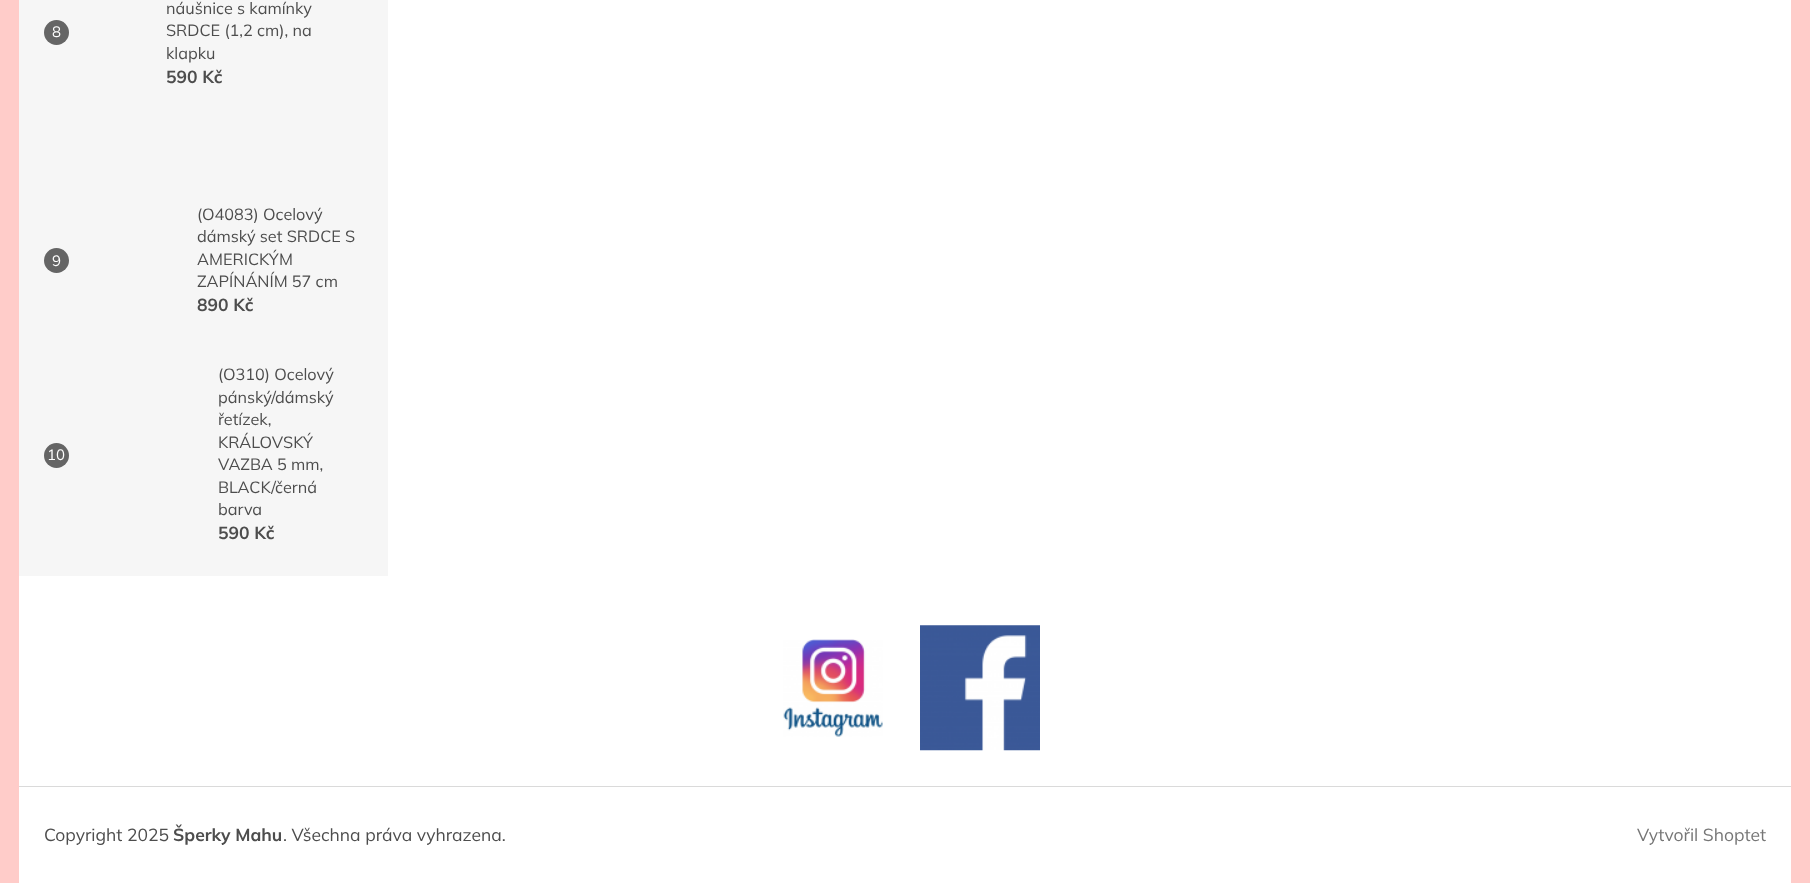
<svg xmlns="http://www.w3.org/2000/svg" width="1810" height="883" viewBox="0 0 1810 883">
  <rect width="100%" height="100%" fill="#ffccc9"/>
  <path d="M388 0h1403v576H388z" fill="#fff"/>
  <path d="M19 0h369v576H19z" fill="#f6f6f6"/>
  <circle cx="56.5" cy="32.5" r="12.5" fill="#656565"/>
  <circle cx="56.5" cy="260.5" r="12.5" fill="#656565"/>
  <circle cx="56.5" cy="455.5" r="12.5" fill="#656565"/>
  <path d="M19 576h1772v210H19z" fill="#fff"/>
  <image x="783" y="639" width="100" height="98" href="img/1.png"/>
  <image x="920" y="625" width="120" height="126" href="img/2.png"/>
  <path d="M19 787h1772v96H19z" fill="#fff"/>
  <path d="M19 786h1772v1H19z" fill="#dadada"/>
  <text x="52" y="37" font-family="Mulish" font-size="15" fill="#fff">8</text>
  <g font-family="Mulish" font-size="16.25" fill="#4d4d4d">
    <text x="166" y="14">náušnice s kamínky</text>
    <text x="166" y="36">SRDCE (1,2 cm), na</text>
    <text x="166" y="59">klapku</text>
  </g>
  <text x="166" y="83" font-family="Mulish" font-size="17.5" font-weight="bold" fill="#4d4d4d">590 Kč</text>
  <text x="52" y="266" font-family="Mulish" font-size="15" fill="#fff">9</text>
  <g font-family="Mulish" font-size="16.25" fill="#4d4d4d">
    <text x="197" y="220">(O4083) Ocelový</text>
    <text x="197" y="242">dámský set SRDCE S</text>
    <text x="197" y="265">AMERICKÝM</text>
    <text x="197" y="287">ZAPÍNÁNÍM 57 cm</text>
  </g>
  <text x="197" y="311" font-family="Mulish" font-size="17.5" font-weight="bold" fill="#4d4d4d">890 Kč</text>
  <text x="47" y="460" font-family="Mulish" font-size="15" fill="#fff">10</text>
  <g font-family="Mulish" font-size="16.25" fill="#4d4d4d">
    <text x="218" y="380">(O310) Ocelový</text>
    <text x="218" y="403">pánský/dámský</text>
    <text x="218" y="425">řetízek,</text>
    <text x="218" y="448">KRÁLOVSKÝ</text>
    <text x="218" y="470">VAZBA 5 mm,</text>
    <text x="218" y="493">BLACK/černá</text>
    <text x="218" y="515">barva</text>
  </g>
  <text x="218" y="539" font-family="Mulish" font-size="17.5" font-weight="bold" fill="#4d4d4d">590 Kč</text>
  <text x="44" y="841" font-family="Mulish" font-size="17.5" fill="#4d4d4d">Copyright 2025</text>
  <text x="173" y="841" font-family="Mulish" font-size="17.5" font-weight="bold" fill="#4d4d4d">Šperky Mahu</text>
  <text x="283" y="841" font-family="Mulish" font-size="17.5" fill="#4d4d4d">. Všechna práva vyhrazena.</text>
  <text x="1637" y="841" font-family="Mulish" font-size="17.5" fill="#767676">Vytvořil Shoptet</text>
</svg>
